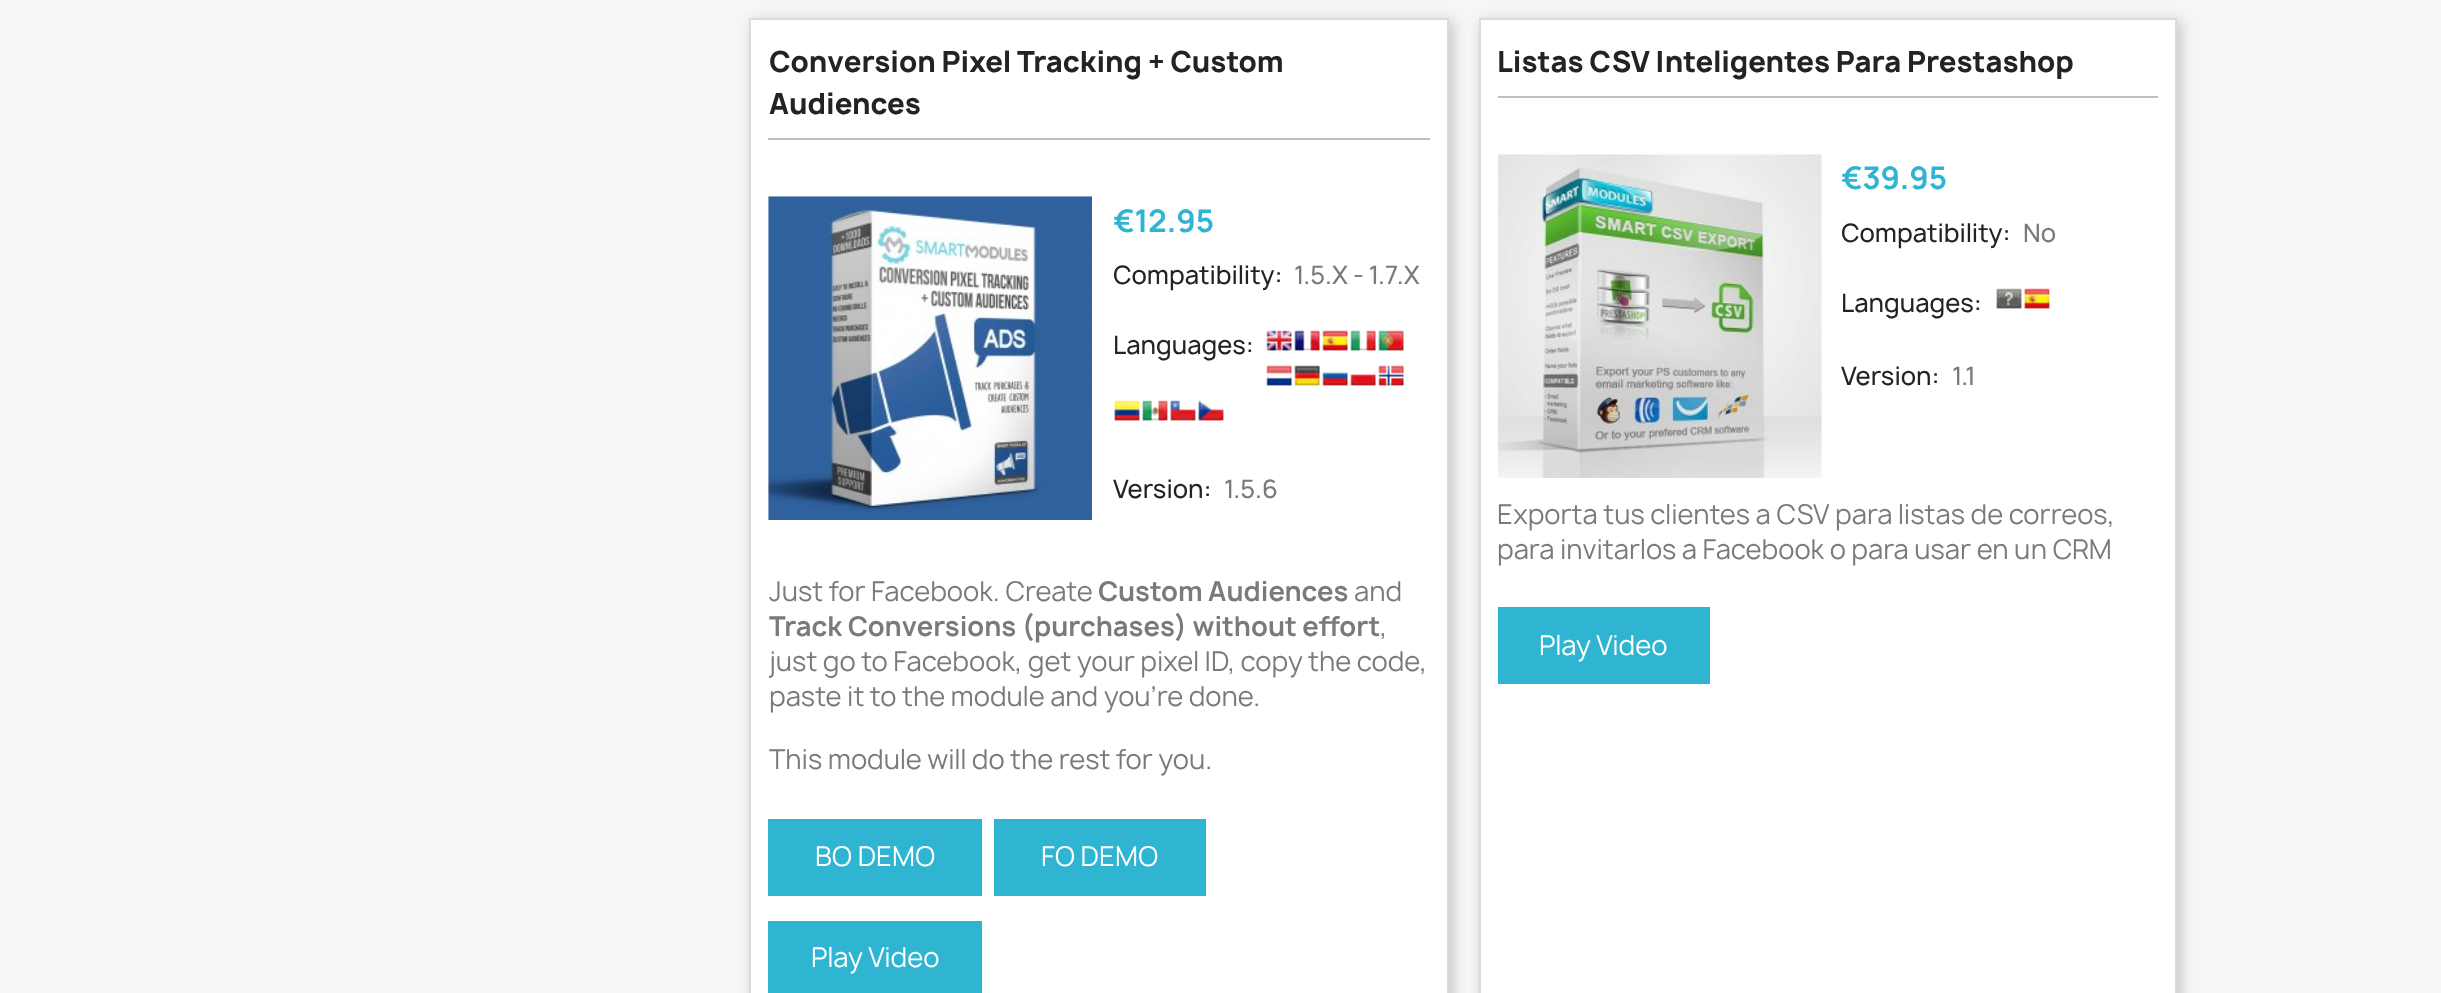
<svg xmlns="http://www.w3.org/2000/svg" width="2441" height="993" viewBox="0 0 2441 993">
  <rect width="100%" height="100%" fill="#f6f6f6"/>
  <path d="M753 21h700v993H753z" fill="#00000033" filter="blur(7px)"/>
  <path d="M750 19h698v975H750z" fill="#fff" stroke="#dbdbdb" stroke-width="2"/>
  <path d="M768 138h662v2H768z" fill="#c0c0c0"/>
  <image x="768" y="196" width="324" height="324" href="img/1.png"/>
  <image x="1266" y="330" width="26" height="21" href="img/2.png"/>
  <image x="1294" y="330" width="26" height="21" href="img/3.png"/>
  <image x="1322" y="330" width="26" height="21" href="img/4.png"/>
  <image x="1350" y="330" width="26" height="21" href="img/5.png"/>
  <image x="1378" y="330" width="26" height="21" href="img/6.png"/>
  <image x="1266" y="365" width="26" height="21" href="img/7.png"/>
  <image x="1294" y="365" width="26" height="21" href="img/8.png"/>
  <image x="1322" y="371" width="26" height="15" href="img/9.png"/>
  <image x="1350" y="371" width="26" height="15" href="img/10.png"/>
  <image x="1378" y="365" width="26" height="21" href="img/11.png"/>
  <image x="1114" y="400" width="26" height="21" href="img/12.png"/>
  <image x="1142" y="400" width="26" height="21" href="img/13.png"/>
  <image x="1170" y="400" width="26" height="21" href="img/14.png"/>
  <image x="1198" y="400" width="26" height="21" href="img/15.png"/>
  <path d="M768 819h214v77H768z" fill="#2fb5d2"/>
  <path d="M994 819h212v77H994z" fill="#2fb5d2"/>
  <path d="M768 921h214v72H768z" fill="#2fb5d2"/>
  <path d="M1482 21h699v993H1482z" fill="#00000033" filter="blur(7px)"/>
  <path d="M1480 19h696v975H1480z" fill="#fff" stroke="#dbdbdb" stroke-width="2"/>
  <path d="M1498 96h660v2H1498z" fill="#c0c0c0"/>
  <image x="1498" y="154" width="324" height="324" href="img/16.png"/>
  <image x="1996" y="288" width="26" height="21" href="img/17.png"/>
  <image x="2024" y="288" width="26" height="21" href="img/18.png"/>
  <path d="M1498 607h212v77H1498z" fill="#2fb5d2"/>
  <g font-family="Manrope" font-size="28" font-weight="800" fill="#232323">
    <text x="769" y="72">Conversion Pixel Tracking + Custom</text>
    <text x="769" y="114">Audiences</text>
  </g>
  <text x="1113" y="232" font-family="Manrope" font-size="30" font-weight="bold" fill="#2fb5d2">€12.95</text>
  <text x="1113" y="284" font-family="Manrope" font-size="24.5" font-weight="500" fill="#232323">Compatibility:</text>
  <text x="1294" y="284" font-family="Manrope" font-size="24.5" font-weight="500" fill="#7a7a7a">1.5.X - 1.7.X</text>
  <g font-family="Manrope" font-size="24.5" font-weight="500" fill="#232323">
    <text x="1113" y="354">Languages:</text>
    <text x="1113" y="498">Version:</text>
  </g>
  <text x="1224" y="498" font-family="Manrope" font-size="24.5" font-weight="500" fill="#7a7a7a">1.5.6</text>
  <text x="769" y="601" font-family="Manrope" font-size="26.25" fill="#7a7a7a">Just for Facebook. Create</text>
  <text x="1098" y="601" font-family="Manrope" font-size="26.25" font-weight="bold" fill="#7a7a7a">Custom Audiences</text>
  <text x="1354" y="601" font-family="Manrope" font-size="26.25" fill="#7a7a7a">and</text>
  <text x="769" y="636" font-family="Manrope" font-size="26.25" font-weight="bold" fill="#7a7a7a">Track Conversions (purchases) without effort</text>
  <g font-family="Manrope" font-size="26.25" fill="#7a7a7a">
    <text x="1380" y="636">,</text>
    <text x="769" y="671">just go to Facebook, get your pixel ID, copy the code,</text>
    <text x="769" y="706">paste it to the module and you're done.</text>
    <text x="769" y="769">This module will do the rest for you.</text>
  </g>
  <g font-family="Manrope" font-size="26.25" fill="#fff">
    <text x="815" y="866">BO DEMO</text>
    <text x="1041" y="866">FO DEMO</text>
    <text x="811" y="967">Play Video</text>
  </g>
  <text x="1497" y="72" font-family="Manrope" font-size="28" font-weight="800" fill="#232323">Listas CSV Inteligentes Para Prestashop</text>
  <text x="1841" y="189" font-family="Manrope" font-size="30" font-weight="bold" fill="#2fb5d2">€39.95</text>
  <text x="1841" y="242" font-family="Manrope" font-size="24.5" font-weight="500" fill="#232323">Compatibility:</text>
  <text x="2023" y="242" font-family="Manrope" font-size="24.5" font-weight="500" fill="#7a7a7a">No</text>
  <g font-family="Manrope" font-size="24.5" font-weight="500" fill="#232323">
    <text x="1841" y="312">Languages:</text>
    <text x="1841" y="385">Version:</text>
  </g>
  <text x="1952" y="385" font-family="Manrope" font-size="24.5" font-weight="500" fill="#7a7a7a">1.1</text>
  <g font-family="Manrope" font-size="26.25" fill="#7a7a7a">
    <text x="1497" y="524">Exporta tus clientes a CSV para listas de correos,</text>
    <text x="1497" y="559">para invitarlos a Facebook o para usar en un CRM</text>
  </g>
  <text x="1539" y="655" font-family="Manrope" font-size="26.25" fill="#fff">Play Video</text>
</svg>
